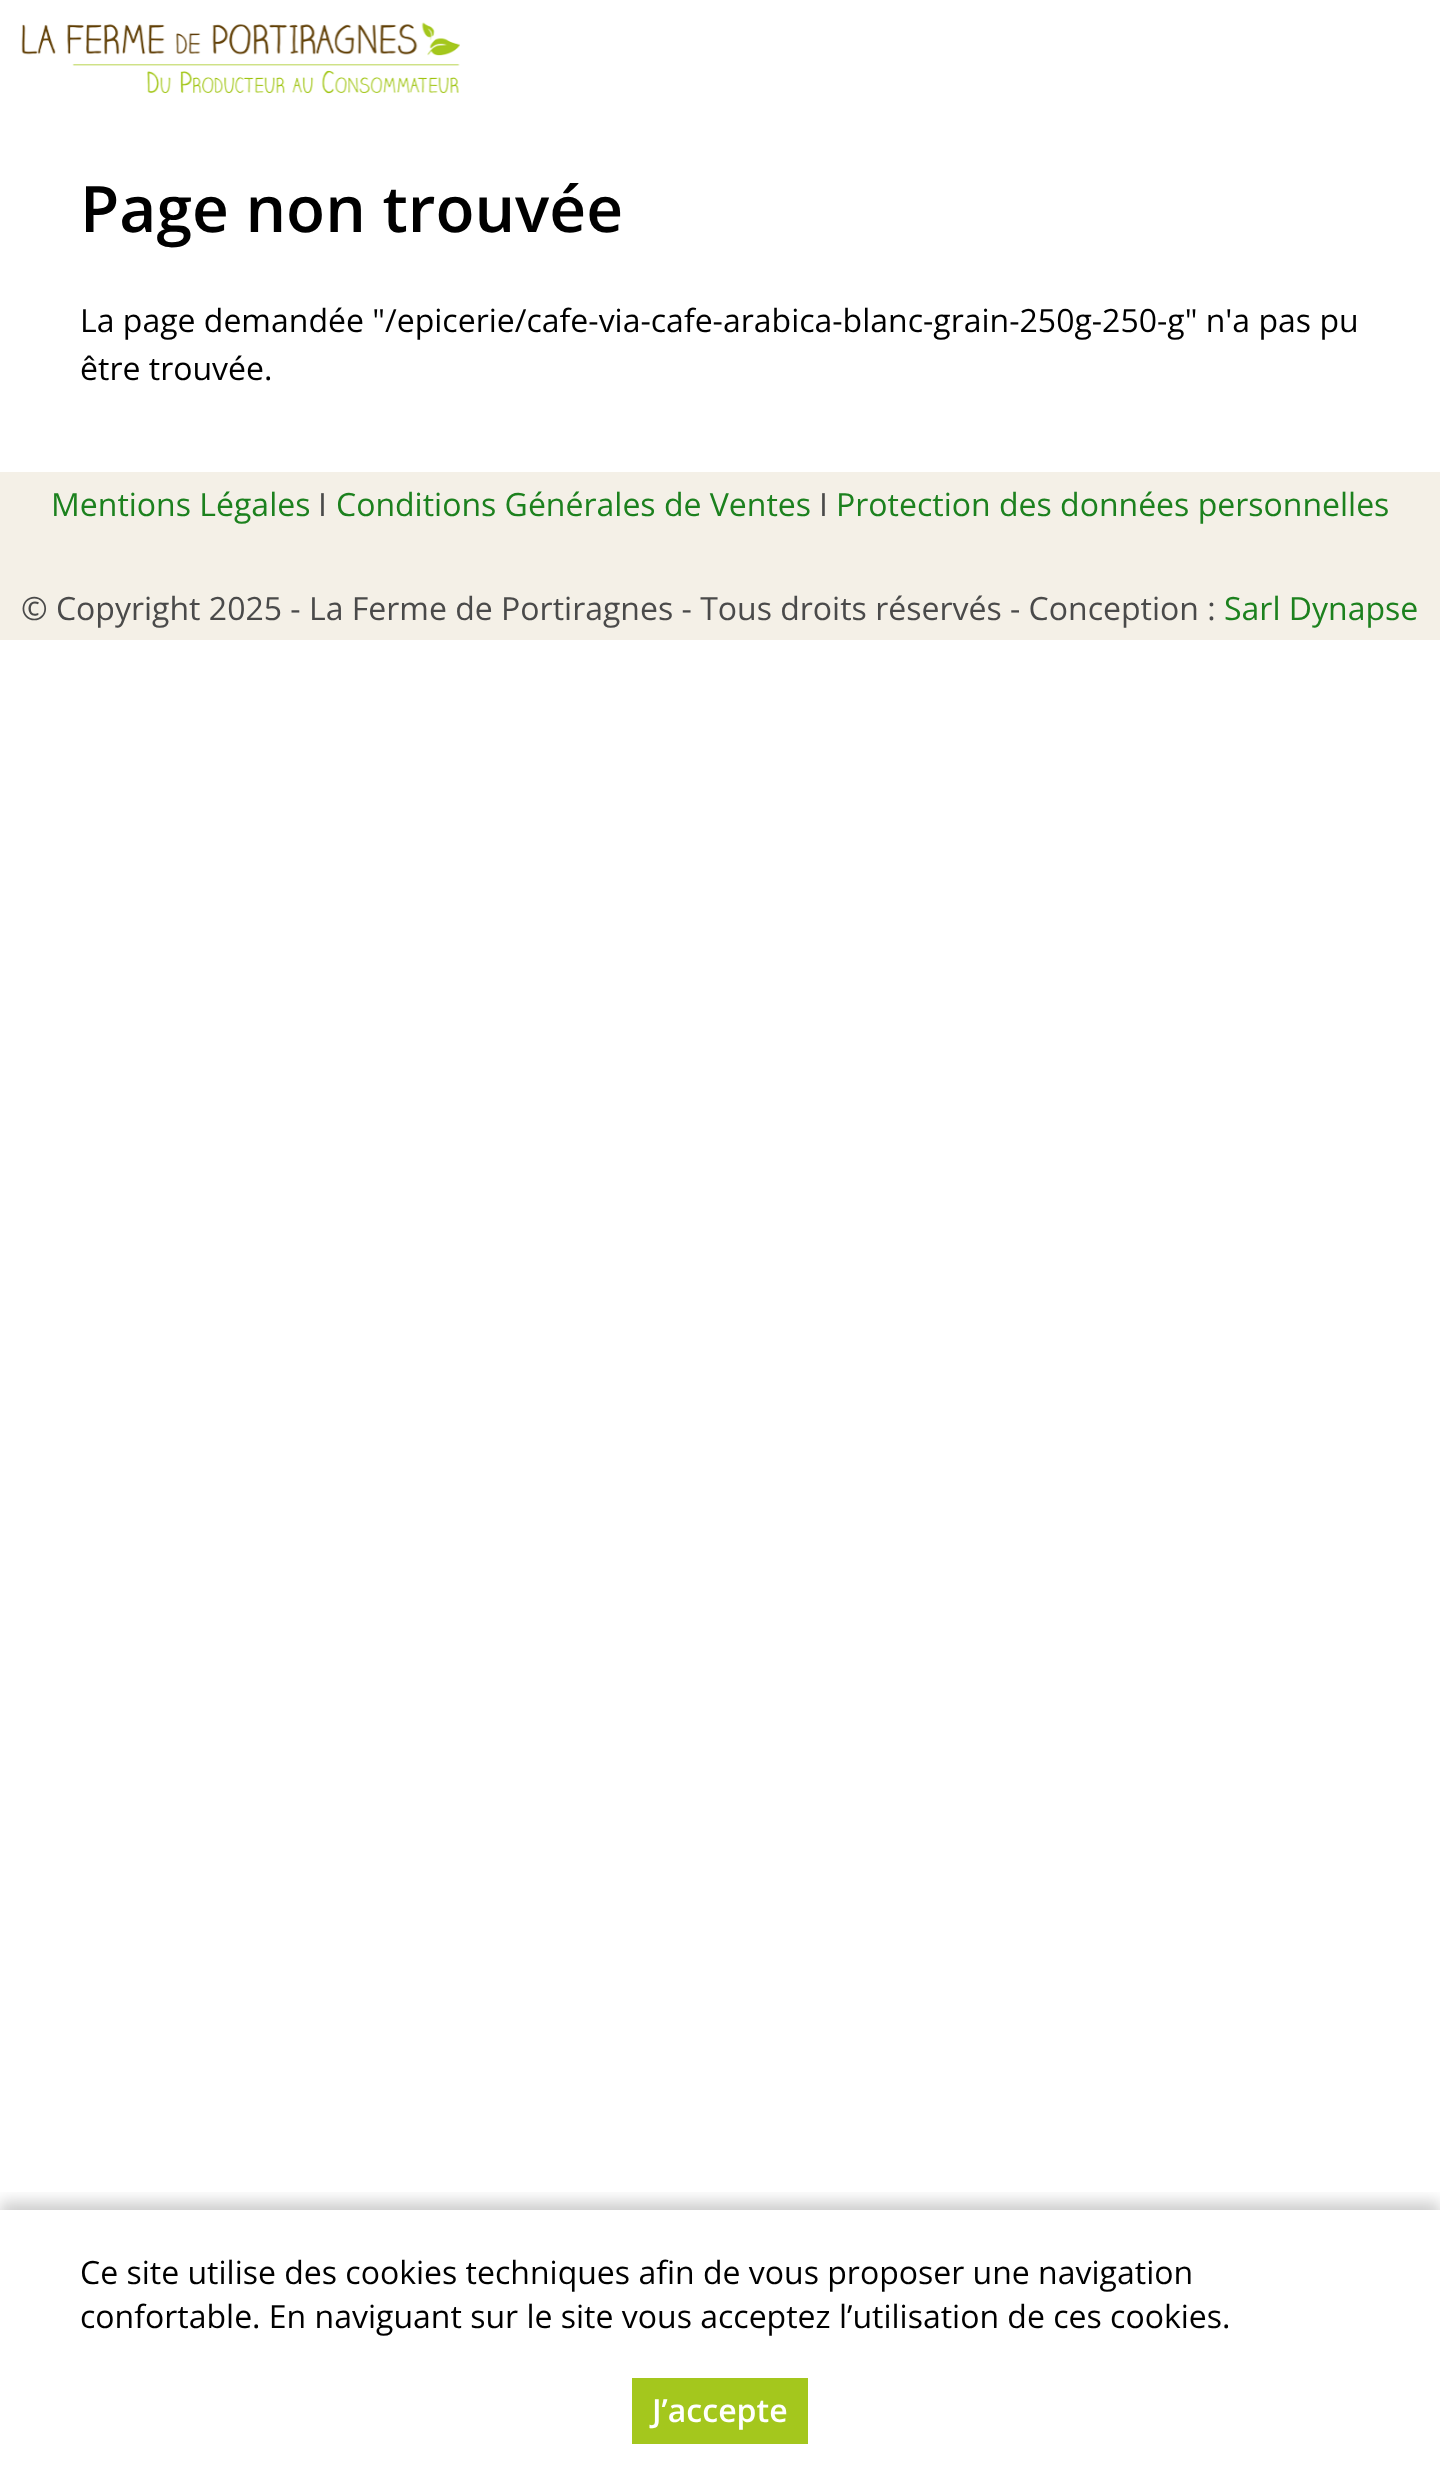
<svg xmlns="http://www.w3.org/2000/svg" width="1440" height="2484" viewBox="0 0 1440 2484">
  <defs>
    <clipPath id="clip1"><path d="M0 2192h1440v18H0z"/></clipPath>
  </defs>
  <rect width="100%" height="100%" fill="#fff"/>
  <image x="21" y="22" width="439" height="72" href="img/1.png"/>
  <path d="M0 472h1440v168H0z" fill="#f4f0e7"/>
  <g clip-path="url(#clip1)">
    <path d="M0 2202h1440v274H0z" fill="#00000033" filter="blur(8px)"/>
  </g>
  <path d="M632 2378h176v66H632z" fill="#a4c71d"/>
  <text x="80" y="232" font-family="Open Sans" font-size="64" font-weight="600" fill="#000">Page non trouvée</text>
  <g font-family="Open Sans" font-size="32" fill="#000">
    <text x="80" y="332">La page demandée "/epicerie/cafe-via-cafe-arabica-blanc-grain-250g-250-g" n'a pas pu</text>
    <text x="80" y="380">être trouvée.</text>
  </g>
  <text x="51" y="516" font-family="Open Sans" font-size="32" fill="#1c811e">Mentions Légales</text>
  <text x="318" y="516" font-family="Open Sans" font-size="32" fill="#4a4a4a">I</text>
  <text x="336" y="516" font-family="Open Sans" font-size="32" fill="#1c811e">Conditions Générales de Ventes</text>
  <text x="819" y="516" font-family="Open Sans" font-size="32" fill="#4a4a4a">I</text>
  <text x="836" y="516" font-family="Open Sans" font-size="32" fill="#1c811e">Protection des données personnelles</text>
  <text x="21" y="620" font-family="Open Sans" font-size="32" fill="#4a4a4a">© Copyright 2025 - La Ferme de Portiragnes - Tous droits réservés - Conception :</text>
  <text x="1224" y="620" font-family="Open Sans" font-size="32" fill="#1c811e">Sarl Dynapse</text>
  <g font-family="Open Sans" font-size="32" fill="#000">
    <text x="80" y="2284">Ce site utilise des cookies techniques afin de vous proposer une navigation</text>
    <text x="80" y="2328">confortable. En naviguant sur le site vous acceptez l’utilisation de ces cookies.</text>
  </g>
  <text x="652" y="2422" font-family="Open Sans" font-size="32" font-weight="600" fill="#fff">J’accepte</text>
</svg>
